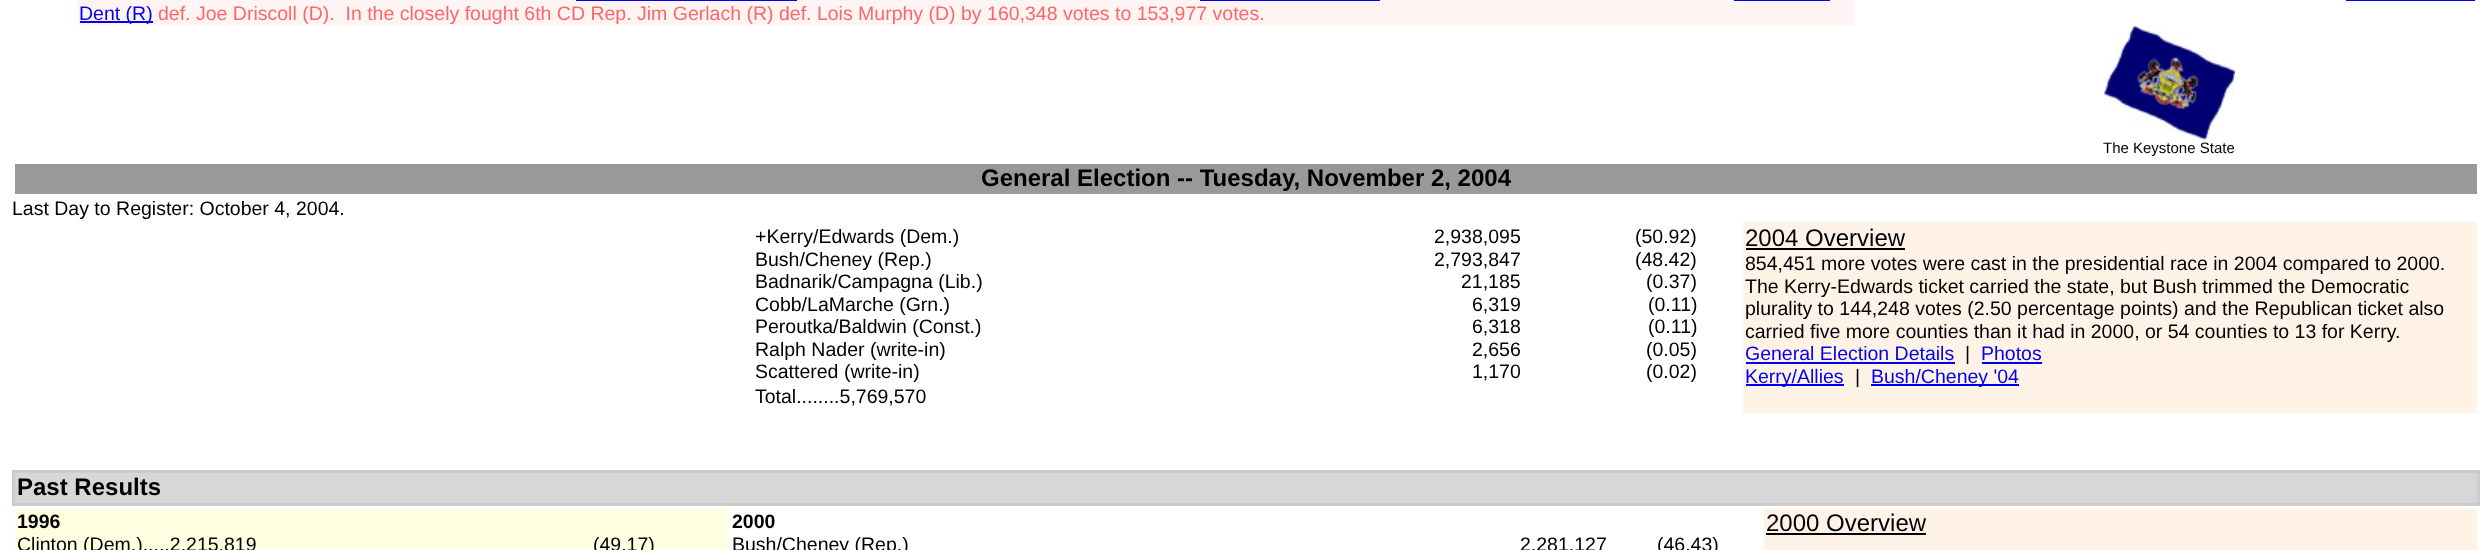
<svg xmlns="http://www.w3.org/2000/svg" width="2491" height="550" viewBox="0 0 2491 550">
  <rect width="100%" height="100%" fill="#fff"/>
  <path d="M78 0h1776v26H78z" fill="#fff4f4"/>
  <path d="M80 21h73v2H80z" fill="#00e"/>
  <path d="M576 0h221v1H576z" fill="#00e"/>
  <path d="M1200 0h180v1H1200z" fill="#00e"/>
  <path d="M1734 0h96v1H1734z" fill="#00e"/>
  <path d="M2346 0h129v1H2346z" fill="#00e"/>
  <image x="2104" y="25" width="131" height="115" href="img/1.png"/>
  <path d="M15 164h2462v30H15z" fill="#999"/>
  <path d="M1743 222h734v191H1743z" fill="#fff2e6"/>
  <path d="M1746 248h159v2H1746z" fill="#000"/>
  <path d="M1746 362h209v2H1746z" fill="#00e"/>
  <path d="M1982 362h60v2H1982z" fill="#00e"/>
  <path d="M1746 384h98v2H1746z" fill="#00e"/>
  <path d="M1871 384h148v2H1871z" fill="#00e"/>
  <path d="M12 470h2468v36H12z" fill="#ccc"/>
  <path d="M15 473h2462v30H15z" fill="#d7d7d7"/>
  <path d="M15 509h713v41H15z" fill="#ffffe1"/>
  <path d="M1764 509h713v41H1764z" fill="#fff2e6"/>
  <path d="M1766 533h160v2H1766z" fill="#000"/>
  <text x="79" y="20" font-family="Liberation Sans" font-size="19.5" fill="#00e">Dent (R)</text>
  <text x="158" y="20" font-family="Liberation Sans" font-size="19.5" fill="#f66" xml:space="preserve">def. Joe Driscoll (D).  In the closely fought 6th CD Rep. Jim Gerlach (R) def. Lois Murphy (D) by 160,348 votes to 153,977 votes.</text>
  <text x="2103" y="153" font-family="Liberation Sans" font-size="15" fill="#000">The Keystone State</text>
  <text x="981" y="186" font-family="Liberation Sans" font-size="24" font-weight="bold" fill="#000">General Election -- Tuesday, November 2, 2004</text>
  <g font-family="Liberation Sans" font-size="19.5" fill="#000">
    <text x="12" y="215">Last Day to Register: October 4, 2004.</text>
    <text x="755" y="243">+Kerry/Edwards (Dem.)</text>
    <text x="1434" y="243">2,938,095</text>
    <text x="1635" y="243">(50.92)</text>
    <text x="755" y="266">Bush/Cheney (Rep.)</text>
    <text x="1434" y="266">2,793,847</text>
    <text x="1635" y="266">(48.42)</text>
    <text x="755" y="288">Badnarik/Campagna (Lib.)</text>
    <text x="1461" y="288">21,185</text>
    <text x="1646" y="288">(0.37)</text>
    <text x="755" y="311">Cobb/LaMarche (Grn.)</text>
    <text x="1472" y="311">6,319</text>
    <text x="1648" y="311">(0.11)</text>
    <text x="755" y="333">Peroutka/Baldwin (Const.)</text>
    <text x="1472" y="333">6,318</text>
    <text x="1648" y="333">(0.11)</text>
    <text x="755" y="356">Ralph Nader (write-in)</text>
    <text x="1472" y="356">2,656</text>
    <text x="1646" y="356">(0.05)</text>
    <text x="755" y="378">Scattered (write-in)</text>
    <text x="1472" y="378">1,170</text>
    <text x="1646" y="378">(0.02)</text>
    <text x="755" y="403">Total........5,769,570</text>
  </g>
  <text x="1745" y="246" font-family="Liberation Sans" font-size="24" fill="#000">2004 Overview</text>
  <g font-family="Liberation Sans" font-size="19.5" fill="#000">
    <text x="1745" y="270">854,451 more votes were cast in the presidential race in 2004 compared to 2000.</text>
    <text x="1745" y="293">The Kerry-Edwards ticket carried the state, but Bush trimmed the Democratic</text>
    <text x="1745" y="315">plurality to 144,248 votes (2.50 percentage points) and the Republican ticket also</text>
    <text x="1745" y="338">carried five more counties than it had in 2000, or 54 counties to 13 for Kerry.</text>
  </g>
  <text x="1745" y="360" font-family="Liberation Sans" font-size="19.5" fill="#00e">General Election Details</text>
  <text x="1965" y="360" font-family="Liberation Sans" font-size="19.5" fill="#000">|</text>
  <g font-family="Liberation Sans" font-size="19.5" fill="#00e">
    <text x="1981" y="360">Photos</text>
    <text x="1745" y="383">Kerry/Allies</text>
  </g>
  <text x="1855" y="383" font-family="Liberation Sans" font-size="19.5" fill="#000">|</text>
  <text x="1871" y="383" font-family="Liberation Sans" font-size="19.5" fill="#00e">Bush/Cheney '04</text>
  <text x="17" y="495" font-family="Liberation Sans" font-size="24" font-weight="bold" fill="#000">Past Results</text>
  <text x="17" y="528" font-family="Liberation Sans" font-size="19.5" font-weight="bold" fill="#000">1996</text>
  <g font-family="Liberation Sans" font-size="19.5" fill="#000">
    <text x="17" y="551">Clinton (Dem.).....2,215,819</text>
    <text x="593" y="551">(49.17)</text>
  </g>
  <text x="732" y="528" font-family="Liberation Sans" font-size="19.5" font-weight="bold" fill="#000">2000</text>
  <g font-family="Liberation Sans" font-size="19.5" fill="#000">
    <text x="732" y="551">Bush/Cheney (Rep.)</text>
    <text x="1520" y="551">2,281,127</text>
    <text x="1657" y="551">(46.43)</text>
  </g>
  <text x="1766" y="531" font-family="Liberation Sans" font-size="24" fill="#000">2000 Overview</text>
</svg>
